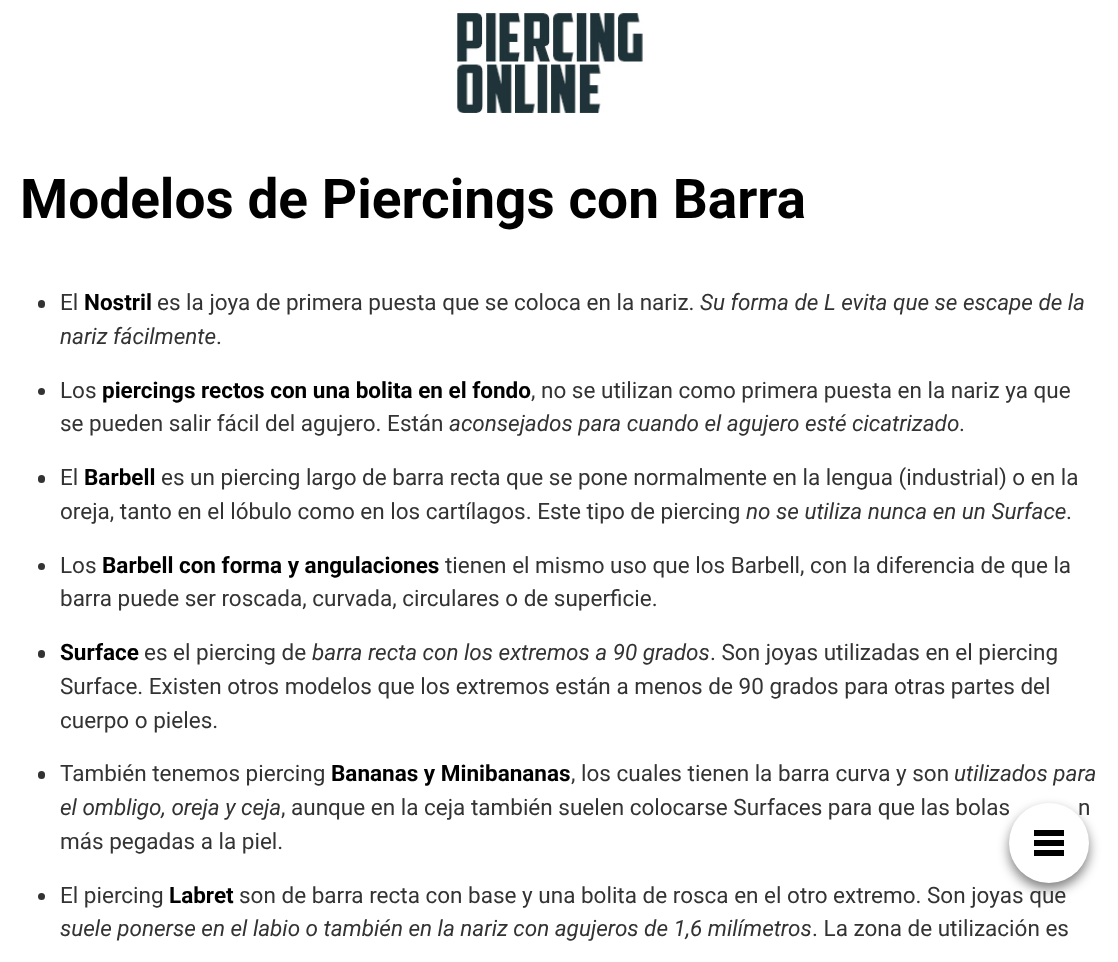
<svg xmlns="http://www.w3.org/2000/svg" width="1118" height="962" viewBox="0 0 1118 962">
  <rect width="100%" height="100%" fill="#fff"/>
  <image x="457" y="13" width="187" height="100" href="img/1.png"/>
  <rect x="1009" y="809" width="80" height="80" rx="40" fill="#00000080" filter="blur(6px)"/>
  <rect x="38" y="300" width="7" height="8" rx="3.5" fill="#333"/>
  <circle cx="41.5" cy="391.5" r="3.5" fill="#333"/>
  <rect x="38" y="475" width="7" height="8" rx="3.5" fill="#333"/>
  <circle cx="41.5" cy="566.5" r="3.5" fill="#333"/>
  <rect x="38" y="650" width="7" height="8" rx="3.5" fill="#333"/>
  <rect x="38" y="771" width="7" height="8" rx="3.5" fill="#333"/>
  <circle cx="41.5" cy="896.5" r="3.5" fill="#333"/>
  <text x="20" y="218" font-family="Roboto" font-size="55" font-weight="bold" fill="#000">Modelos de Piercings con Barra</text>
  <text x="60" y="310" font-family="Roboto" font-size="22.5" fill="#333">El</text>
  <text x="84" y="310" font-family="Roboto" font-size="22.5" font-weight="bold" fill="#000">Nostril</text>
  <text x="157" y="310" font-family="Roboto" font-size="22.5" fill="#333">es la joya de primera puesta que se coloca en la nariz.</text>
  <g font-family="Roboto" font-size="22.5" font-style="italic" fill="#333">
    <text x="700" y="310">Su forma de L evita que se escape de la</text>
    <text x="60" y="344">nariz fácilmente</text>
  </g>
  <g font-family="Roboto" font-size="22.5" fill="#333">
    <text x="216" y="344">.</text>
    <text x="60" y="398">Los</text>
  </g>
  <text x="102" y="398" font-family="Roboto" font-size="22.5" font-weight="bold" fill="#000">piercings rectos con una bolita en el fondo</text>
  <g font-family="Roboto" font-size="22.5" fill="#333">
    <text x="531" y="398">, no se utilizan como primera puesta en la nariz ya que</text>
    <text x="60" y="431">se pueden salir fácil del agujero. Están</text>
  </g>
  <text x="449" y="431" font-family="Roboto" font-size="22.5" font-style="italic" fill="#333">aconsejados para cuando el agujero esté cicatrizado</text>
  <g font-family="Roboto" font-size="22.5" fill="#333">
    <text x="959" y="431">.</text>
    <text x="60" y="485">El</text>
  </g>
  <text x="84" y="485" font-family="Roboto" font-size="22.5" font-weight="bold" fill="#000">Barbell</text>
  <g font-family="Roboto" font-size="22.5" fill="#333">
    <text x="161" y="485">es un piercing largo de barra recta que se pone normalmente en la lengua (industrial) o en la</text>
    <text x="60" y="519">oreja, tanto en el lóbulo como en los cartílagos. Este tipo de piercing</text>
  </g>
  <text x="746" y="519" font-family="Roboto" font-size="22.5" font-style="italic" fill="#333">no se utiliza nunca en un Surface</text>
  <g font-family="Roboto" font-size="22.5" fill="#333">
    <text x="1066" y="519">.</text>
    <text x="60" y="573">Los</text>
  </g>
  <text x="102" y="573" font-family="Roboto" font-size="22.5" font-weight="bold" fill="#000">Barbell con forma y angulaciones</text>
  <g font-family="Roboto" font-size="22.5" fill="#333">
    <text x="445" y="573">tienen el mismo uso que los Barbell, con la diferencia de que la</text>
    <text x="60" y="606">barra puede ser roscada, curvada, circulares o de superficie.</text>
  </g>
  <text x="60" y="660" font-family="Roboto" font-size="22.5" font-weight="bold" fill="#000">Surface</text>
  <text x="144" y="660" font-family="Roboto" font-size="22.5" fill="#333">es el piercing de</text>
  <text x="312" y="660" font-family="Roboto" font-size="22.5" font-style="italic" fill="#333">barra recta con los extremos a 90 grados</text>
  <g font-family="Roboto" font-size="22.5" fill="#333">
    <text x="710" y="660">. Son joyas utilizadas en el piercing</text>
    <text x="60" y="694">Surface. Existen otros modelos que los extremos están a menos de 90 grados para otras partes del</text>
    <text x="60" y="728">cuerpo o pieles.</text>
    <text x="60" y="781">También tenemos piercing</text>
  </g>
  <text x="331" y="781" font-family="Roboto" font-size="22.5" font-weight="bold" fill="#000">Bananas y Minibananas</text>
  <text x="571" y="781" font-family="Roboto" font-size="22.5" fill="#333">, los cuales tienen la barra curva y son</text>
  <g font-family="Roboto" font-size="22.5" font-style="italic" fill="#333">
    <text x="954" y="781">utilizados para</text>
    <text x="60" y="815">el ombligo, oreja y ceja</text>
  </g>
  <g font-family="Roboto" font-size="22.5" fill="#333">
    <text x="281" y="815">, aunque en la ceja también suelen colocarse Surfaces para que las bolas</text>
    <text x="1078" y="815">n</text>
  </g>
  <circle cx="1049" cy="843" r="40" fill="#fff"/>
  <path d="M1034 850h30v6H1034z" fill="#000"/>
  <path d="M1034 830h30v6H1034z" fill="#000"/>
  <path d="M1034 840h30v6H1034z" fill="#000"/>
  <g font-family="Roboto" font-size="22.5" fill="#333">
    <text x="60" y="849">más pegadas a la piel.</text>
    <text x="60" y="903">El piercing</text>
  </g>
  <text x="169" y="903" font-family="Roboto" font-size="22.5" font-weight="bold" fill="#000">Labret</text>
  <text x="239" y="903" font-family="Roboto" font-size="22.5" fill="#333">son de barra recta con base y una bolita de rosca en el otro extremo. Son joyas que</text>
  <text x="60" y="936" font-family="Roboto" font-size="22.5" font-style="italic" fill="#333">suele ponerse en el labio o también en la nariz con agujeros de 1,6 milímetros</text>
  <text x="812" y="936" font-family="Roboto" font-size="22.5" fill="#333">. La zona de utilización es</text>
</svg>
